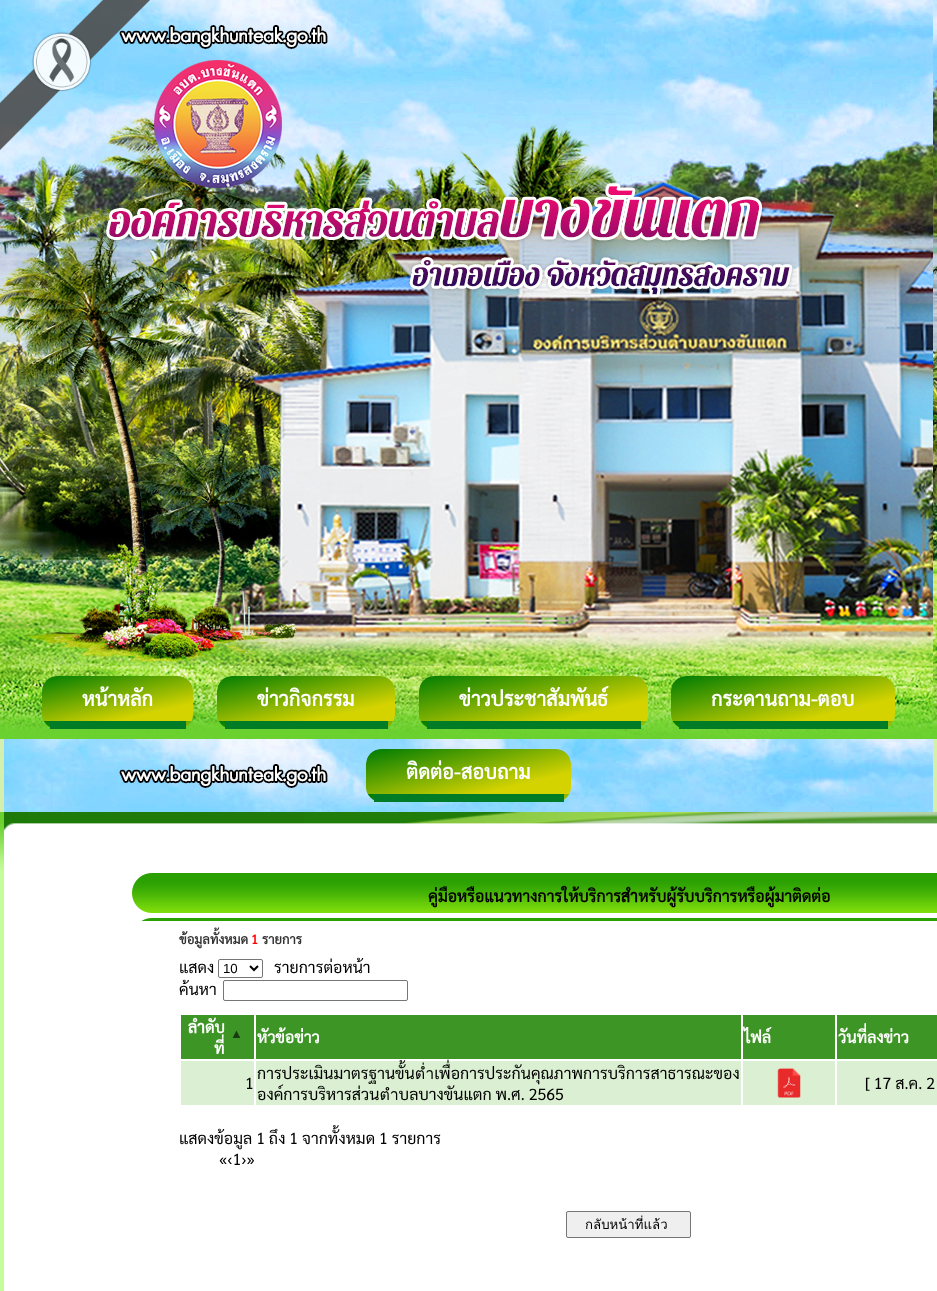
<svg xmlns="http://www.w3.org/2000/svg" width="937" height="1291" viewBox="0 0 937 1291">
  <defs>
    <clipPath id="clip1"><rect x="42" y="676" width="151" height="53" rx="15"/></clipPath>
    <linearGradient id="g1" gradientUnits="userSpaceOnUse" x1="126" y1="736" x2="109" y2="661"><stop offset="0.22" stop-color="#d4d300"/><stop offset="1" stop-color="#007c03"/></linearGradient>
    <linearGradient id="g2" gradientUnits="userSpaceOnUse" x1="126" y1="781" x2="109" y2="706"><stop offset="0.22" stop-color="#d4d300"/><stop offset="1" stop-color="#007c03"/></linearGradient>
    <clipPath id="clip2"><rect x="217" y="676" width="178" height="53" rx="15"/></clipPath>
    <linearGradient id="g3" gradientUnits="userSpaceOnUse" x1="315" y1="739" x2="297" y2="658"><stop offset="0.22" stop-color="#d4d300"/><stop offset="1" stop-color="#007c03"/></linearGradient>
    <linearGradient id="g4" gradientUnits="userSpaceOnUse" x1="315" y1="784" x2="297" y2="703"><stop offset="0.22" stop-color="#d4d300"/><stop offset="1" stop-color="#007c03"/></linearGradient>
    <clipPath id="clip3"><rect x="419" y="676" width="229" height="53" rx="15"/></clipPath>
    <linearGradient id="g5" gradientUnits="userSpaceOnUse" x1="544" y1="745" x2="523" y2="652"><stop offset="0.22" stop-color="#d4d300"/><stop offset="1" stop-color="#007c03"/></linearGradient>
    <linearGradient id="g6" gradientUnits="userSpaceOnUse" x1="544" y1="790" x2="523" y2="697"><stop offset="0.22" stop-color="#d4d300"/><stop offset="1" stop-color="#007c03"/></linearGradient>
    <clipPath id="clip4"><rect x="671" y="676" width="224" height="53" rx="15"/></clipPath>
    <linearGradient id="g7" gradientUnits="userSpaceOnUse" x1="794" y1="744" x2="772" y2="653"><stop offset="0.22" stop-color="#d4d300"/><stop offset="1" stop-color="#007c03"/></linearGradient>
    <linearGradient id="g8" gradientUnits="userSpaceOnUse" x1="794" y1="789" x2="772" y2="698"><stop offset="0.22" stop-color="#d4d300"/><stop offset="1" stop-color="#007c03"/></linearGradient>
    <clipPath id="clip5"><rect x="366" y="749" width="205" height="53" rx="15"/></clipPath>
    <linearGradient id="g9" gradientUnits="userSpaceOnUse" x1="479" y1="815" x2="458" y2="728"><stop offset="0.22" stop-color="#d4d300"/><stop offset="1" stop-color="#007c03"/></linearGradient>
    <linearGradient id="g10" gradientUnits="userSpaceOnUse" x1="479" y1="860" x2="458" y2="773"><stop offset="0.22" stop-color="#d4d300"/><stop offset="1" stop-color="#007c03"/></linearGradient>
  </defs>
  <rect width="100%" height="100%" fill="#d3f0af"/>
  <image x="0" y="0" width="4" height="739" href="img/2.png"/>
  <image x="4" y="0" width="929" height="812" href="img/3.png"/>
  <image x="0" y="0" width="150" height="150" href="img/1.png"/>
  <image x="154" y="60" width="128" height="128" href="img/4.png"/>
  <image x="104" y="181" width="690" height="117" href="img/5.png"/>
  <g clip-path="url(#clip1)">
    <path d="M57 676H178C186.5 676 193 682.5 193 691V721H42V691C42 682.5 48.5 676 57 676Z" fill="url(#g1)"/>
    <path d="M42 721h151v7H42z" fill="url(#g2)"/>
  </g>
  <path d="M50 721h136v8H50z" fill="#007b26"/>
  <g clip-path="url(#clip2)">
    <path d="M232 676H380C388.5 676 395 682.5 395 691V721H217V691C217 682.5 223.5 676 232 676Z" fill="url(#g3)"/>
    <path d="M217 721h178v7H217z" fill="url(#g4)"/>
  </g>
  <path d="M225 721h163v8H225z" fill="#007b26"/>
  <g clip-path="url(#clip3)">
    <path d="M434 676H633C641.5 676 648 682.5 648 691V721H419V691C419 682.5 425.5 676 434 676Z" fill="url(#g5)"/>
    <path d="M419 721h229v7H419z" fill="url(#g6)"/>
  </g>
  <path d="M427 721h214v8H427z" fill="#007b26"/>
  <g clip-path="url(#clip4)">
    <path d="M686 676H880C888.5 676 895 682.5 895 691V721H671V691C671 682.5 677.5 676 686 676Z" fill="url(#g7)"/>
    <path d="M671 721h224v7H671z" fill="url(#g8)"/>
  </g>
  <path d="M679 721h209v8H679z" fill="#007b26"/>
  <g clip-path="url(#clip5)">
    <path d="M381 749H556C564.5 749 571 755.5 571 764V794H366V764C366 755.5 372.5 749 381 749Z" fill="url(#g9)"/>
    <path d="M366 794h205v7H366z" fill="url(#g10)"/>
  </g>
  <path d="M374 794h190v8H374z" fill="#007b26"/>
  <image x="933" y="0" width="4" height="739" href="img/6.png"/>
  <image x="0" y="812" width="4" height="479" href="img/7.png"/>
  <path d="M4 831h933v460H4z" fill="#fff"/>
  <image x="4" y="812" width="933" height="19" href="img/8.png"/>
  <image x="132" y="873" width="805" height="48" href="img/9.png"/>
  <rect x="218.5" y="959.5" width="44" height="18" rx="1.5" fill="none" stroke="#767676"/>
  <path d="M250 966L254 970L258 966" fill="none" stroke="#000" stroke-width="2"/>
  <rect x="223.5" y="980.5" width="184" height="20" rx="1.5" fill="none" stroke="#767676"/>
  <path d="M181 1015h73v44H181z" fill="#3d9525"/>
  <path d="M256 1015h485v44H256z" fill="#3d9525"/>
  <path d="M743 1015h92v44H743z" fill="#3d9525"/>
  <path d="M837 1015h100v44H837z" fill="#3d9525"/>
  <path d="M181 1061h73v44H181z" fill="#dbf0d2"/>
  <path d="M256 1061h485v44H256z" fill="#dbf0d2"/>
  <path d="M743 1061h92v44H743z" fill="#dbf0d2"/>
  <image x="777" y="1068" width="24" height="30" href="img/10.png"/>
  <path d="M837 1061h100v44H837z" fill="#dbf0d2"/>
  <rect x="566.5" y="1211.5" width="124" height="26" rx="1.5" fill="#efefef" stroke="#767676"/>
  <g font-family="Sarabun" font-size="20" font-weight="bold" fill="#fff">
    <text x="82" y="706">หน้าหลัก</text>
    <text x="257" y="706">ข่าวกิจกรรม</text>
    <text x="459" y="706">ข่าวประชาสัมพันธ์</text>
    <text x="711" y="706">กระดานถาม-ตอบ</text>
    <text x="406" y="779">ติดต่อ-สอบถาม</text>
  </g>
  <text x="428" y="902" font-family="Sarabun" font-size="16" font-weight="bold" fill="#000">คู่มือหรือแนวทางการให้บริการสำหรับผู้รับบริการหรือผู้มาติดต่อ</text>
  <text x="179" y="944" font-family="Sarabun" font-size="13" font-weight="bold" fill="#333">ข้อมูลทั้งหมด</text>
  <text x="251" y="944" font-family="Sarabun" font-size="13" font-weight="bold" fill="#f00">1</text>
  <text x="262" y="944" font-family="Sarabun" font-size="13" font-weight="bold" fill="#333">รายการ</text>
  <text x="179" y="973" font-family="Sarabun" font-size="16" fill="#000">แสดง</text>
  <text x="223" y="973" font-family="Liberation Sans" font-size="13.25" fill="#000">10</text>
  <g font-family="Sarabun" font-size="16" fill="#000">
    <text x="274" y="973">รายการต่อหน้า</text>
    <text x="179" y="995">ค้นหา</text>
  </g>
  <text x="188" y="1033" font-family="Sarabun" font-size="16" font-weight="bold" fill="#fff">ลำดับ</text>
  <text x="230" y="1038" font-family="Liberation Sans" font-size="13" fill="#183c0f">▲</text>
  <g font-family="Sarabun" font-size="16" font-weight="bold" fill="#fff">
    <text x="214" y="1054">ที่</text>
    <text x="257" y="1043">หัวข้อข่าว</text>
    <text x="744" y="1043">ไฟล์</text>
    <text x="838" y="1043">วันที่ลงข่าว</text>
  </g>
  <g font-family="Sarabun" font-size="16" fill="#000">
    <text x="245" y="1089">1</text>
    <text x="257" y="1079">การประเมินมาตรฐานขั้นต่ำเพื่อการประกันคุณภาพการบริการสาธารณะของ</text>
    <text x="257" y="1100">องค์การบริหารส่วนตำบลบางขันแตก พ.ศ. 2565</text>
    <text x="865" y="1089">[ 17 ส.ค. 2</text>
    <text x="179" y="1144">แสดงข้อมูล 1 ถึง 1 จากทั้งหมด 1 รายการ</text>
    <text x="219" y="1165">«‹1›»</text>
  </g>
  <text x="585" y="1229" font-family="Loma" font-size="13.25" fill="#000">กลับหน้าที่แล้ว</text>
</svg>
